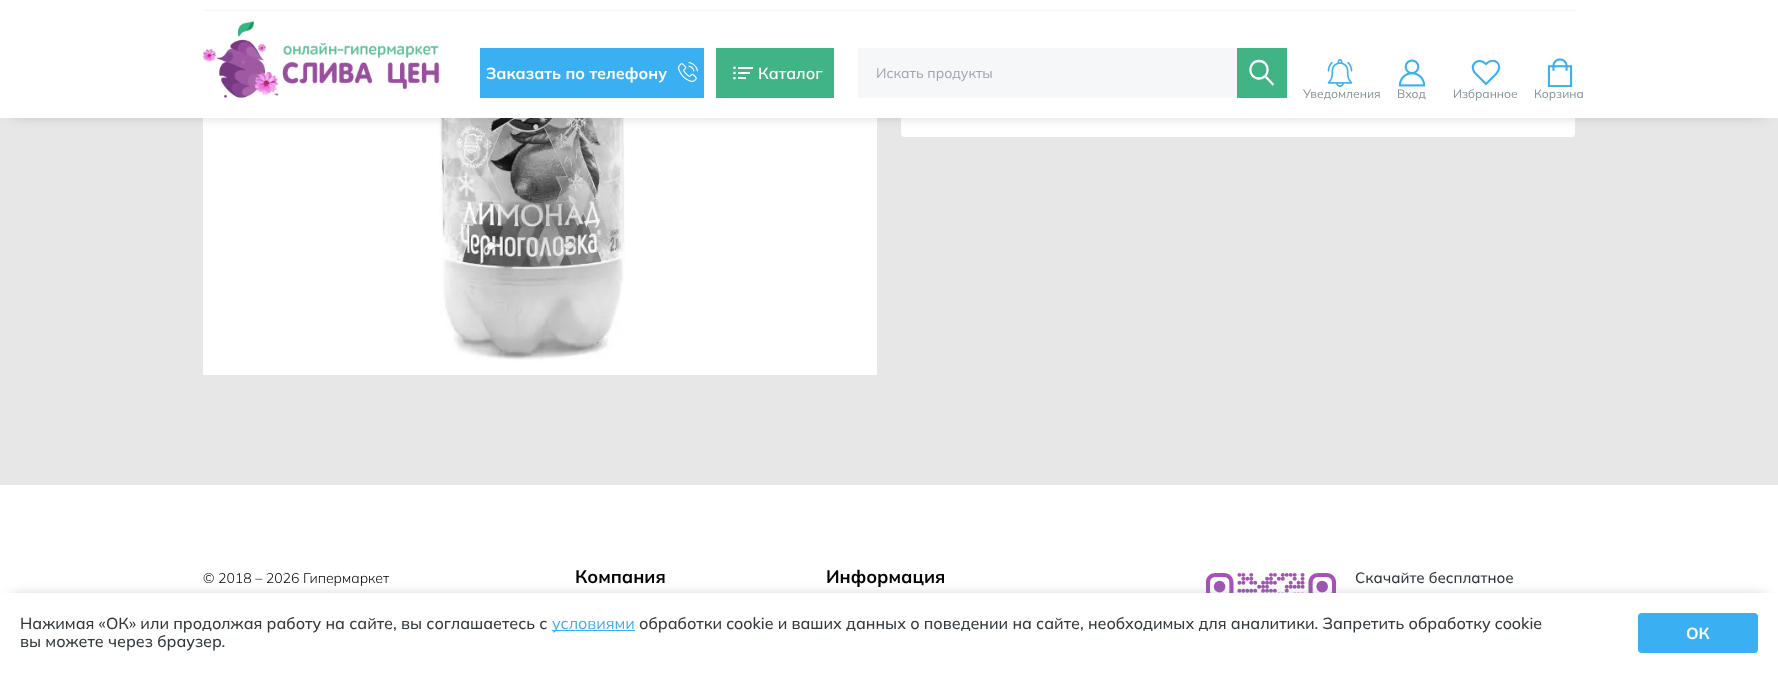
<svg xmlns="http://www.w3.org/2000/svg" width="1778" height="673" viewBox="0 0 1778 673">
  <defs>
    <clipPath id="clip1"><path d="M1471 60h30v26H1471z"/></clipPath>
  </defs>
  <rect width="100%" height="100%" fill="#e7e7e7"/>
  <rect x="901" y="1" width="674" height="136" rx="4" fill="#fff"/>
  <path d="M203 118h674v257H203z" fill="#fff"/>
  <image x="439" y="118" width="186" height="243" href="img/7.png"/>
  <path d="M13 -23h1752v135H13z" fill="#829297e0" filter="blur(7.5px)"/>
  <path d="M0 0h1778v118H0z" fill="#fff"/>
  <path d="M203 10h1372v1H203z" fill="#f6f6f6"/>
  <image x="203" y="21" width="237" height="77" href="img/1.png"/>
  <path d="M480 48h224v50H480z" fill="#3aaff1"/>
  <image x="678" y="62" width="20" height="20" href="img/2.png"/>
  <path d="M716 48h118v50H716z" fill="#40b484"/>
  <image x="733" y="66" width="20" height="14" href="img/3.png"/>
  <path d="M858 48h379v50H858z" fill="#f6f7f9"/>
  <path d="M1237 48h50v50H1237z" fill="#40b484"/>
  <path d="M1259 78.5C1270.5 78.5 1270.5 61 1259 61C1247.5 61 1247.5 78.5 1259 78.5ZM1265 76L1273.5 85" fill="none" stroke="#fff" stroke-width="2.3"/>
  <image x="1327" y="59" width="26" height="28" href="img/4.png"/>
  <image x="1398" y="59" width="28" height="28" href="img/5.png"/>
  <g clip-path="url(#clip1)">
    <path d="M1486 84L1476 74C1467.5 66 1477.5 56 1486 64C1494.5 55.5 1504.5 65.5 1496 74Z" fill="none" stroke="#3aaff1" stroke-width="2.1"/>
  </g>
  <image x="1547" y="58" width="26" height="29" href="img/6.png"/>
  <path d="M0 485h1778v108H0z" fill="#fff"/>
  <image x="1206" y="573" width="130" height="20" href="img/8.png"/>
  <path d="M13 599h1752v54H13z" fill="#829297e0" filter="blur(7.5px)"/>
  <path d="M0 593h1778v80H0z" fill="#fff"/>
  <path d="M552 630h83v1H552z" fill="#3aaff1"/>
  <rect x="1638" y="613" width="120" height="40" rx="4" fill="#3aaff1"/>
  <text x="486" y="79" font-family="Mulish" font-size="16" font-weight="bold" fill="#fff">Заказать по телефону</text>
  <text x="758" y="79" font-family="Mulish" font-size="16" font-weight="600" fill="#fff">Каталог</text>
  <text x="876" y="78" font-family="Mulish" font-size="14" fill="#9ca3af">Искать продукты</text>
  <g font-family="Mulish" font-size="12" fill="#829297">
    <text x="1303" y="98">Уведомления</text>
    <text x="1397" y="98">Вход</text>
    <text x="1453" y="98">Избранное</text>
    <text x="1534" y="98">Корзина</text>
  </g>
  <text x="203" y="583" font-family="Mulish" font-size="14" font-weight="300" fill="#000">© 2018 – 2026 Гипермаркет</text>
  <g font-family="Mulish" font-size="18" font-weight="bold" fill="#000">
    <text x="575" y="583">Компания</text>
    <text x="826" y="583">Информация</text>
  </g>
  <text x="1355" y="583" font-family="Mulish" font-size="15" font-weight="500" fill="#32383c">Скачайте бесплатное</text>
  <text x="20" y="629" font-family="Mulish" font-size="16" font-weight="500" fill="#32383c">Нажимая «ОК» или продолжая работу на сайте, вы соглашаетесь с</text>
  <text x="552" y="629" font-family="Mulish" font-size="16" fill="#3aaff1">условиями</text>
  <g font-family="Mulish" font-size="16" font-weight="500" fill="#32383c">
    <text x="639" y="629">обработки cookie и ваших данных о поведении на сайте, необходимых для аналитики. Запретить обработку cookie</text>
    <text x="20" y="647">вы можете через браузер.</text>
  </g>
  <text x="1686" y="639" font-family="Mulish" font-size="16" font-weight="bold" fill="#fff">ОК</text>
</svg>
